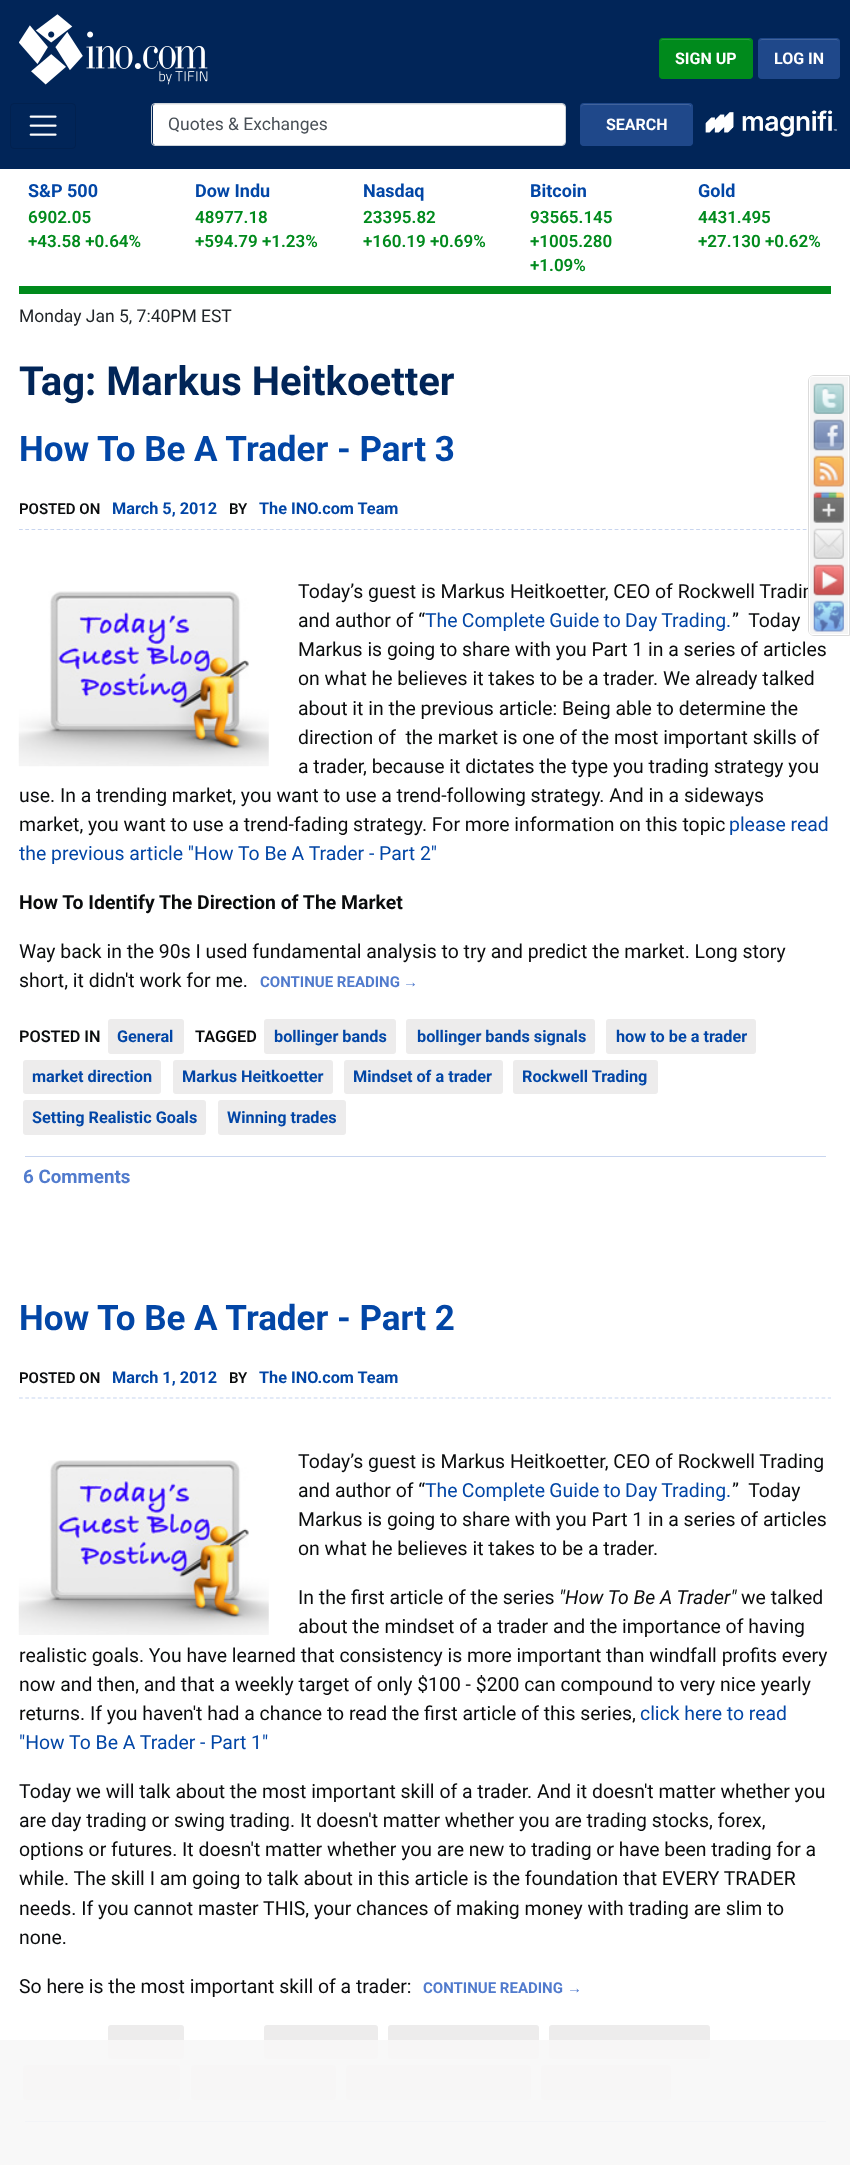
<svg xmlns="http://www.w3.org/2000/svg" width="850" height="2165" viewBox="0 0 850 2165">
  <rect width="100%" height="100%" fill="#fff"/>
  <path d="M0 0h850v169H0z" fill="#012558"/>
  <image x="19" y="14" width="189" height="71" href="img/1.png"/>
  <rect x="659" y="38" width="94" height="41" rx="4" fill="#008a1c"/>
  <path d="M663 40H748C750 40 751 41 751 43C751 35 740 39 734 39H677C671 39 660 35 660 43C660 41 661 40 663 40Z" fill="#269c3e"/>
  <rect x="659.5" y="38.5" width="93" height="40" rx="3.5" fill="none" stroke="#008a1c"/>
  <rect x="758" y="38" width="82" height="41" rx="4" fill="#1f488a"/>
  <path d="M762 40H836C838 40 839 41 839 43C839 36 830 39 824 39H774C768 39 759 36 759 43C759 41 760 40 762 40Z" fill="#41639c"/>
  <rect x="758.5" y="38.5" width="81" height="40" rx="3.5" fill="none" stroke="#1f488a"/>
  <rect x="10.5" y="103.5" width="65" height="45" rx="3.5" fill="none" stroke="#01214f"/>
  <image x="29" y="115" width="28" height="21" href="img/2.png"/>
  <rect x="153" y="104" width="412" height="41" rx="2.5" fill="#fff"/>
  <path d="M155 105H562C564 105 565 106 565 108C565 106 565 104 563 104H155L153 106Z" fill="#00000012"/>
  <rect x="151.5" y="103.5" width="414" height="42" rx="3.5" fill="none" stroke="#ced4da"/>
  <rect x="580" y="103" width="113" height="43" rx="4" fill="#1f488a"/>
  <path d="M584 105H688C690 105 691 106 691 108V106C691 105 690 104 688 104H584C582 104 581 105 581 106V108C581 106 582 105 584 105Z" fill="#41639c"/>
  <rect x="580.5" y="103.5" width="112" height="42" rx="3.5" fill="none" stroke="#1f488a"/>
  <image x="705" y="110" width="133" height="27" href="img/3.png"/>
  <path d="M19 286h812v8H19z" fill="#008a1c"/>
  <path d="M19 529.5H831" fill="none" stroke="#c8d5ef" stroke-width="1.2" stroke-dasharray="3.75 2.52"/>
  <image x="18" y="591" width="251" height="176" href="img/4.png"/>
  <rect x="108" y="1019" width="76" height="35" rx="3" fill="#edecec"/>
  <rect x="264" y="1019" width="132" height="35" rx="3" fill="#edecec"/>
  <rect x="406" y="1019" width="189" height="35" rx="3" fill="#edecec"/>
  <rect x="606" y="1019" width="150" height="35" rx="3" fill="#edecec"/>
  <rect x="23" y="1060" width="138" height="34" rx="3" fill="#edecec"/>
  <rect x="173" y="1060" width="160" height="34" rx="3" fill="#edecec"/>
  <rect x="344" y="1060" width="159" height="34" rx="3" fill="#edecec"/>
  <rect x="513" y="1060" width="145" height="34" rx="3" fill="#edecec"/>
  <rect x="23" y="1100" width="183" height="35" rx="3" fill="#edecec"/>
  <rect x="218" y="1100" width="128" height="35" rx="3" fill="#edecec"/>
  <path d="M25 1156h801v1H25z" fill="#c8d5ef"/>
  <path d="M19 1398H831" fill="none" stroke="#c8d5ef" stroke-width="1.2" stroke-dasharray="3.75 2.52"/>
  <image x="18" y="1460" width="251" height="175" href="img/5.png"/>
  <rect x="264" y="2025" width="114" height="34" rx="3" fill="#edecec"/>
  <rect x="388" y="2025" width="151" height="34" rx="3" fill="#edecec"/>
  <rect x="549" y="2025" width="161" height="34" rx="3" fill="#edecec"/>
  <rect x="23" y="2065" width="157" height="35" rx="3" fill="#edecec"/>
  <rect x="191" y="2065" width="145" height="35" rx="3" fill="#edecec"/>
  <rect x="346" y="2065" width="185" height="35" rx="3" fill="#edecec"/>
  <rect x="541" y="2065" width="130" height="35" rx="3" fill="#edecec"/>
  <rect x="108" y="2025" width="76" height="34" rx="3" fill="#edecec"/>
  <path d="M25 2121h801v1H25z" fill="#c8d5ef"/>
  <path d="M0 2040h850v125H0z" fill="#f7f7f7e6"/>
  <g font-family="Roboto" font-size="16" font-weight="bold" fill="#fff">
    <text x="675" y="64">SIGN UP</text>
    <text x="774" y="64">LOG IN</text>
  </g>
  <text x="168" y="130" font-family="Roboto" font-size="17.5" fill="#495057">Quotes &amp; Exchanges</text>
  <text x="606" y="130" font-family="Roboto" font-size="16" font-weight="bold" fill="#fff">SEARCH</text>
  <text x="28" y="197" font-family="Roboto" font-size="18" font-weight="bold" fill="#0246a6">S&amp;P 500</text>
  <g font-family="Roboto" font-size="17" font-weight="600" fill="#008a1c">
    <text x="28" y="223">6902.05</text>
    <text x="28" y="247">+43.58 +0.64%</text>
  </g>
  <text x="195" y="197" font-family="Roboto" font-size="18" font-weight="bold" fill="#0246a6">Dow Indu</text>
  <g font-family="Roboto" font-size="17" font-weight="600" fill="#008a1c">
    <text x="195" y="223">48977.18</text>
    <text x="195" y="247">+594.79 +1.23%</text>
  </g>
  <text x="363" y="197" font-family="Roboto" font-size="18" font-weight="bold" fill="#0246a6">Nasdaq</text>
  <g font-family="Roboto" font-size="17" font-weight="600" fill="#008a1c">
    <text x="363" y="223">23395.82</text>
    <text x="363" y="247">+160.19 +0.69%</text>
  </g>
  <text x="530" y="197" font-family="Roboto" font-size="18" font-weight="bold" fill="#0246a6">Bitcoin</text>
  <g font-family="Roboto" font-size="17" font-weight="600" fill="#008a1c">
    <text x="530" y="223">93565.145</text>
    <text x="530" y="247">+1005.280</text>
    <text x="530" y="271">+1.09%</text>
  </g>
  <text x="698" y="197" font-family="Roboto" font-size="18" font-weight="bold" fill="#0246a6">Gold</text>
  <g font-family="Roboto" font-size="17" font-weight="600" fill="#008a1c">
    <text x="698" y="223">4431.495</text>
    <text x="698" y="247">+27.130 +0.62%</text>
  </g>
  <text x="19" y="322" font-family="Roboto" font-size="17.5" fill="#212529">Monday Jan 5, 7:40PM EST</text>
  <text x="19" y="395" font-family="Roboto" font-size="40" font-weight="bold" fill="#012558">Tag: Markus Heitkoetter</text>
  <text x="19" y="461" font-family="Roboto" font-size="35" font-weight="bold" fill="#0246a6">How To Be A Trader - Part 3</text>
  <text x="19" y="514" font-family="Roboto" font-size="15" font-weight="600" fill="#0a0c0d">POSTED ON</text>
  <text x="112" y="514" font-family="Roboto" font-size="16.25" font-weight="bold" fill="#0246a6">March 5, 2012</text>
  <text x="229" y="514" font-family="Roboto" font-size="15" font-weight="600" fill="#0a0c0d">BY</text>
  <text x="259" y="514" font-family="Roboto" font-size="16.25" font-weight="bold" fill="#0246a6">The INO.com Team</text>
  <g font-family="Roboto" font-size="19.4" fill="#0a0c0d">
    <text x="298" y="598">Today’s guest is Markus Heitkoetter, CEO of Rockwell Tradin</text>
    <text x="298" y="627">and author of “</text>
  </g>
  <text x="425" y="627" word-spacing="-0.5" font-family="Roboto" font-size="19.4" fill="#0246a6">The Complete Guide to Day Trading.</text>
  <g font-family="Roboto" font-size="19.4" fill="#0a0c0d">
    <text x="732" y="627" xml:space="preserve">”  Today</text>
    <text x="298" y="656">Markus is going to share with you Part 1 in a series of articles</text>
    <text x="298" y="685">on what he believes it takes to be a trader. We already talked</text>
    <text x="298" y="715">about it in the previous article: Being able to determine the</text>
    <text x="298" y="744" xml:space="preserve">direction of  the market is one of the most important skills of</text>
    <text x="298" y="773">a trader, because it dictates the type you trading strategy you</text>
    <text x="19" y="802">use. In a trending market, you want to use a trend-following strategy. And in a sideways</text>
    <text x="19" y="831">market, you want to use a trend-fading strategy. For more information on this topic</text>
  </g>
  <g font-family="Roboto" font-size="19.4" fill="#0246a6">
    <text x="729" y="831">please read</text>
    <text x="19" y="860">the previous article "How To Be A Trader - Part 2"</text>
  </g>
  <text x="19" y="909" font-family="Roboto" font-size="19.4" font-weight="bold" fill="#0a0c0d">How To Identify The Direction of The Market</text>
  <g font-family="Roboto" font-size="19.4" fill="#0a0c0d">
    <text x="19" y="958">Way back in the 90s I used fundamental analysis to try and predict the market. Long story</text>
    <text x="19" y="987">short, it didn't work for me.</text>
  </g>
  <text x="260" y="987" font-family="Roboto" font-size="15" font-weight="bold" fill="#517bcd">CONTINUE READING</text>
  <text x="403" y="987" font-family="Liberation Sans" font-size="15" font-weight="bold" fill="#517bcd">→</text>
  <text x="19" y="1042" font-family="Roboto" font-size="16.25" font-weight="600" fill="#0a0c0d">POSTED IN</text>
  <text x="117" y="1042" font-family="Roboto" font-size="16.25" font-weight="bold" fill="#0246a6">General</text>
  <text x="195" y="1042" font-family="Roboto" font-size="16.25" font-weight="600" fill="#0a0c0d">TAGGED</text>
  <g font-family="Roboto" font-size="16.25" font-weight="bold" fill="#0246a6">
    <text x="274" y="1042">bollinger bands</text>
    <text x="417" y="1042">bollinger bands signals</text>
    <text x="616" y="1042">how to be a trader</text>
    <text x="32" y="1082">market direction</text>
    <text x="182" y="1082">Markus Heitkoetter</text>
    <text x="353" y="1082">Mindset of a trader</text>
    <text x="522" y="1082">Rockwell Trading</text>
    <text x="32" y="1123">Setting Realistic Goals</text>
    <text x="227" y="1123">Winning trades</text>
  </g>
  <text x="23" y="1183" font-family="Roboto" font-size="18.75" font-weight="bold" fill="#517bcd">6 Comments</text>
  <text x="19" y="1330" font-family="Roboto" font-size="35" font-weight="bold" fill="#0246a6">How To Be A Trader - Part 2</text>
  <text x="19" y="1383" font-family="Roboto" font-size="15" font-weight="600" fill="#0a0c0d">POSTED ON</text>
  <text x="112" y="1383" font-family="Roboto" font-size="16.25" font-weight="bold" fill="#0246a6">March 1, 2012</text>
  <text x="229" y="1383" font-family="Roboto" font-size="15" font-weight="600" fill="#0a0c0d">BY</text>
  <text x="259" y="1383" font-family="Roboto" font-size="16.25" font-weight="bold" fill="#0246a6">The INO.com Team</text>
  <g font-family="Roboto" font-size="19.4" fill="#0a0c0d">
    <text x="298" y="1468">Today’s guest is Markus Heitkoetter, CEO of Rockwell Trading</text>
    <text x="298" y="1497">and author of “</text>
  </g>
  <text x="425" y="1497" word-spacing="-0.5" font-family="Roboto" font-size="19.4" fill="#0246a6">The Complete Guide to Day Trading.</text>
  <g font-family="Roboto" font-size="19.4" fill="#0a0c0d">
    <text x="732" y="1497" xml:space="preserve">”  Today</text>
    <text x="298" y="1526">Markus is going to share with you Part 1 in a series of articles</text>
    <text x="298" y="1555">on what he believes it takes to be a trader.</text>
    <text x="298" y="1604">In the first article of the series</text>
  </g>
  <text x="559" y="1604" font-family="Roboto" font-size="19.4" font-style="italic" fill="#0a0c0d">"How To Be A Trader"</text>
  <g font-family="Roboto" font-size="19.4" fill="#0a0c0d">
    <text x="741" y="1604">we talked</text>
    <text x="298" y="1633">about the mindset of a trader and the importance of having</text>
    <text x="19" y="1662">realistic goals. You have learned that consistency is more important than windfall profits every</text>
    <text x="19" y="1691">now and then, and that a weekly target of only $100 - $200 can compound to very nice yearly</text>
    <text x="19" y="1720">returns. If you haven't had a chance to read the first article of this series,</text>
  </g>
  <g font-family="Roboto" font-size="19.4" fill="#0246a6">
    <text x="640" y="1720">click here to read</text>
    <text x="19" y="1749">"How To Be A Trader - Part 1"</text>
  </g>
  <g font-family="Roboto" font-size="19.4" fill="#0a0c0d">
    <text x="19" y="1798">Today we will talk about the most important skill of a trader. And it doesn't matter whether you</text>
    <text x="19" y="1827">are day trading or swing trading. It doesn't matter whether you are trading stocks, forex,</text>
    <text x="19" y="1856">options or futures. It doesn't matter whether you are new to trading or have been trading for a</text>
    <text x="19" y="1885">while. The skill I am going to talk about in this article is the foundation that EVERY TRADER</text>
    <text x="19" y="1915">needs. If you cannot master THIS, your chances of making money with trading are slim to</text>
    <text x="19" y="1944">none.</text>
    <text x="19" y="1993">So here is the most important skill of a trader:</text>
  </g>
  <text x="423" y="1993" font-family="Roboto" font-size="15" font-weight="bold" fill="#517bcd">CONTINUE READING</text>
  <text x="567" y="1993" font-family="Liberation Sans" font-size="15" font-weight="bold" fill="#517bcd">→</text>
  <path d="M814 375.5H849.5V635.5H814C811 635.5 808.5 633 808.5 630V381C808.5 378 811 375.5 814 375.5Z" fill="none" stroke="#dbdbdb"/>
  <path d="M813 376.5H848.5V634.5H813C811 634.5 809.5 633 809.5 631V380C809.5 378 811 376.5 813 376.5Z" fill="#f4f4f4" stroke="#fff"/>
  <image x="813" y="383" width="31" height="31" href="img/6.png"/>
  <image x="813" y="419" width="31" height="32" href="img/7.png"/>
  <image x="813" y="455" width="31" height="32" href="img/8.png"/>
  <image x="813" y="491" width="31" height="32" href="img/9.png"/>
  <image x="813" y="528" width="31" height="31" href="img/10.png"/>
  <image x="813" y="564" width="31" height="32" href="img/11.png"/>
  <image x="813" y="600" width="31" height="32" href="img/12.png"/>
</svg>
